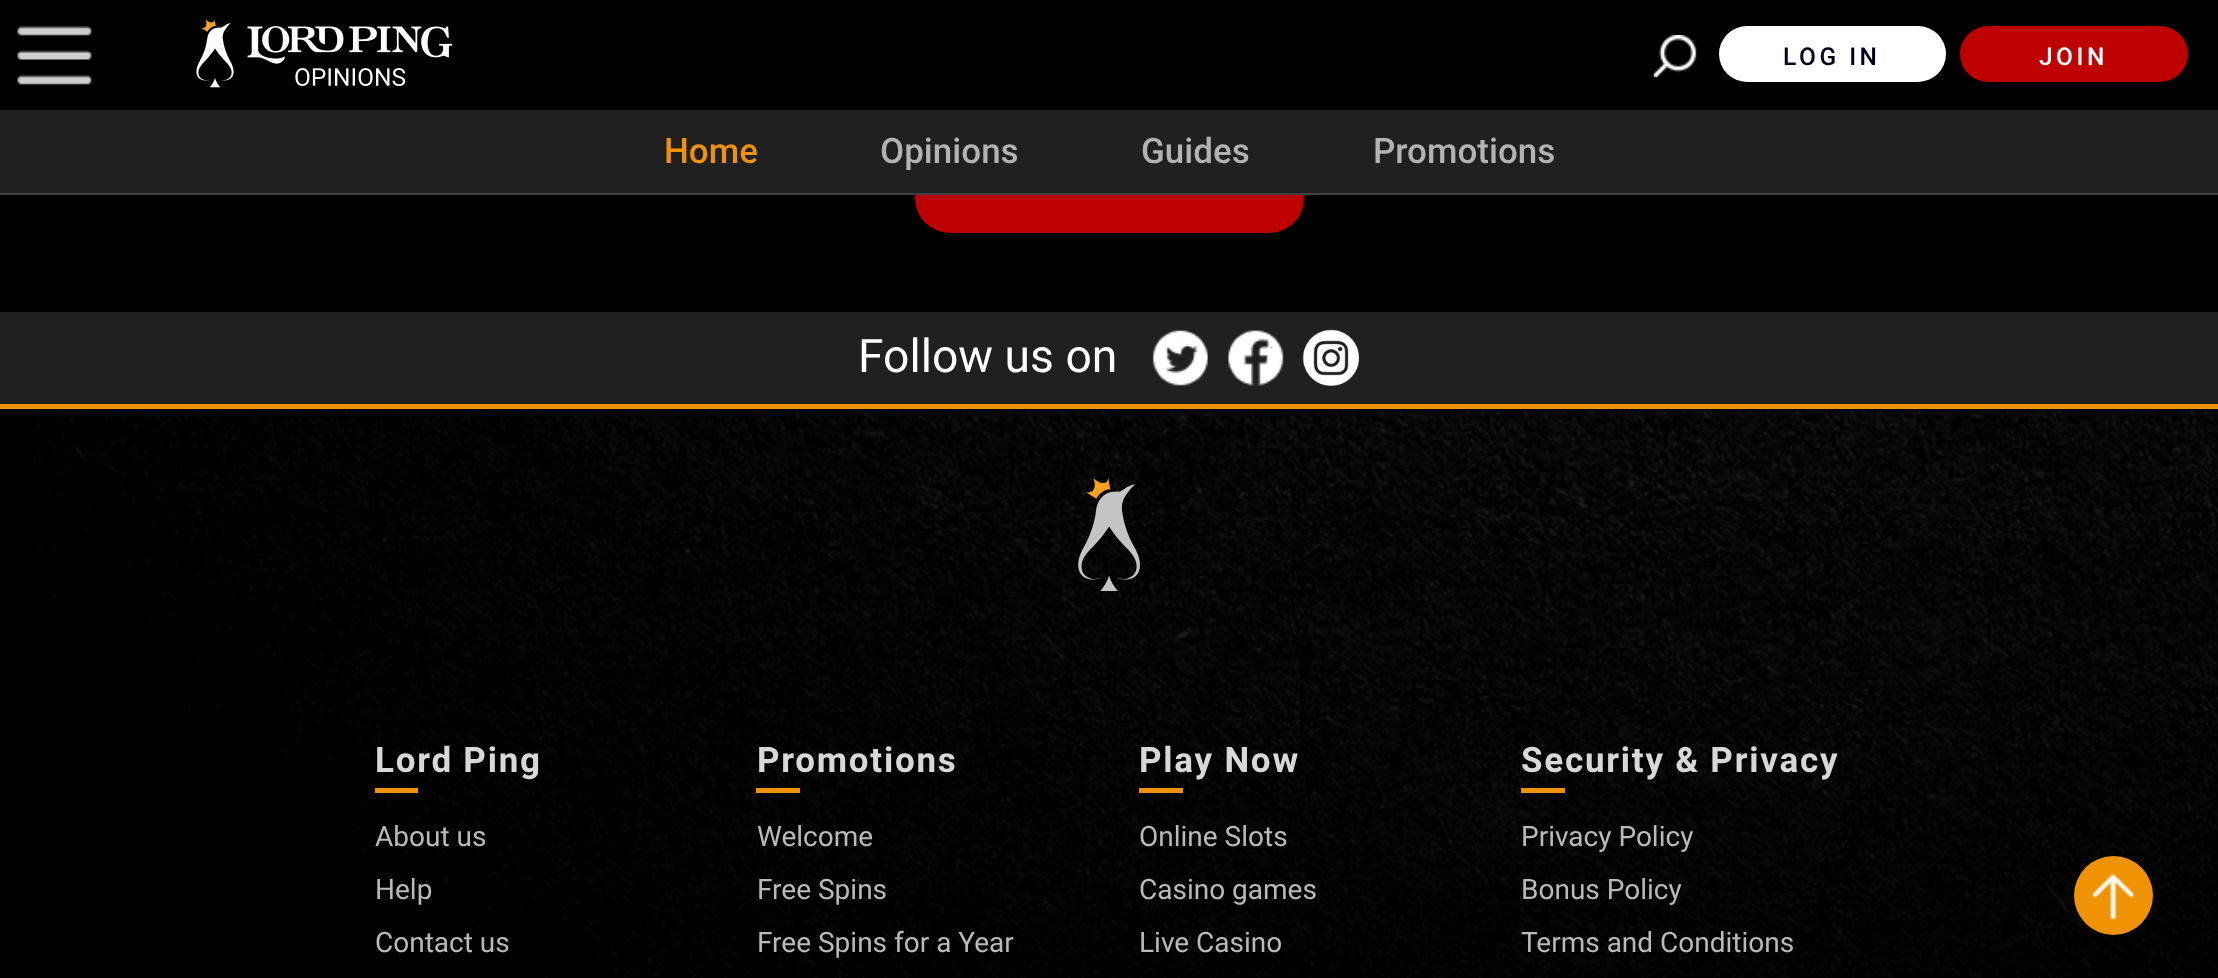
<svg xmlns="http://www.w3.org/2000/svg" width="2218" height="978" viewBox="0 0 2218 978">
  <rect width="100%" height="100%" fill="#000"/>
  <image x="17" y="26" width="75" height="59" href="img/1.png"/>
  <image x="196" y="19" width="257" height="69" href="img/2.png"/>
  <image x="1653" y="35" width="44" height="42" href="img/3.png"/>
  <rect x="1719" y="26" width="227" height="56" rx="28" fill="#fff"/>
  <rect x="1960" y="26" width="228" height="56" rx="28" fill="#bd0000"/>
  <rect x="915" y="163" width="389" height="70" rx="35" fill="#bd0000"/>
  <path d="M0 110h2218v83H0z" fill="#202020"/>
  <path d="M0 193h2218v2H0z" fill="#404040"/>
  <path d="M0 312h2218v92H0z" fill="#202020"/>
  <image x="1152" y="330" width="56" height="56" href="img/4.png"/>
  <image x="1228" y="330" width="56" height="56" href="img/5.png"/>
  <image x="1302" y="329" width="57" height="57" href="img/6.png"/>
  <image x="38" y="410" width="2180" height="568" href="img/7.png"/>
  <path d="M0 404h2218v5H0z" fill="#ef9305"/>
  <image x="1078" y="478" width="62" height="113" href="img/8.png"/>
  <path d="M375 788h43v5H375z" fill="#ef9305"/>
  <path d="M756 788h44v5H756z" fill="#ef9305"/>
  <path d="M1139 788h44v5H1139z" fill="#ef9305"/>
  <path d="M1521 788h44v5H1521z" fill="#ef9305"/>
  <circle cx="2113.5" cy="895.5" r="39.5" fill="#ef9305"/>
  <image x="2092" y="874" width="42" height="46" href="img/9.png"/>
  <text x="1783" y="65" font-family="Roboto" font-size="24.5" font-weight="500" letter-spacing="3.5" fill="#03021b">LOG IN</text>
  <text x="2039" y="65" font-family="Roboto" font-size="24.5" font-weight="500" letter-spacing="3.5" fill="#fff">JOIN</text>
  <text x="664" y="163" font-family="Roboto" font-size="35" font-weight="500" fill="#ef9206">Home</text>
  <g font-family="Roboto" font-size="35" font-weight="500" fill="#b3b3b3">
    <text x="880" y="163">Opinions</text>
    <text x="1141" y="163">Guides</text>
    <text x="1373" y="163">Promotions</text>
  </g>
  <text x="858" y="372" font-family="Roboto" font-size="46.25" fill="#fff">Follow us on</text>
  <text x="375" y="772" font-family="Roboto" font-size="35" font-weight="bold" letter-spacing="1.75" fill="#d8d8d8">Lord Ping</text>
  <g font-family="Roboto" font-size="28" fill="#b7bbbc">
    <text x="375" y="846">About us</text>
    <text x="375" y="899">Help</text>
    <text x="375" y="952">Contact us</text>
  </g>
  <text x="757" y="772" font-family="Roboto" font-size="35" font-weight="bold" letter-spacing="1.75" fill="#d8d8d8">Promotions</text>
  <g font-family="Roboto" font-size="28" fill="#b7bbbc">
    <text x="757" y="846">Welcome</text>
    <text x="757" y="899">Free Spins</text>
    <text x="757" y="952">Free Spins for a Year</text>
  </g>
  <text x="1139" y="772" font-family="Roboto" font-size="35" font-weight="bold" letter-spacing="1.75" fill="#d8d8d8">Play Now</text>
  <g font-family="Roboto" font-size="28" fill="#b7bbbc">
    <text x="1139" y="846">Online Slots</text>
    <text x="1139" y="899">Casino games</text>
    <text x="1139" y="952">Live Casino</text>
  </g>
  <text x="1521" y="772" font-family="Roboto" font-size="35" font-weight="bold" letter-spacing="1.75" fill="#d8d8d8">Security &amp; Privacy</text>
  <g font-family="Roboto" font-size="28" fill="#b7bbbc">
    <text x="1521" y="846">Privacy Policy</text>
    <text x="1521" y="899">Bonus Policy</text>
    <text x="1521" y="952">Terms and Conditions</text>
  </g>
</svg>
